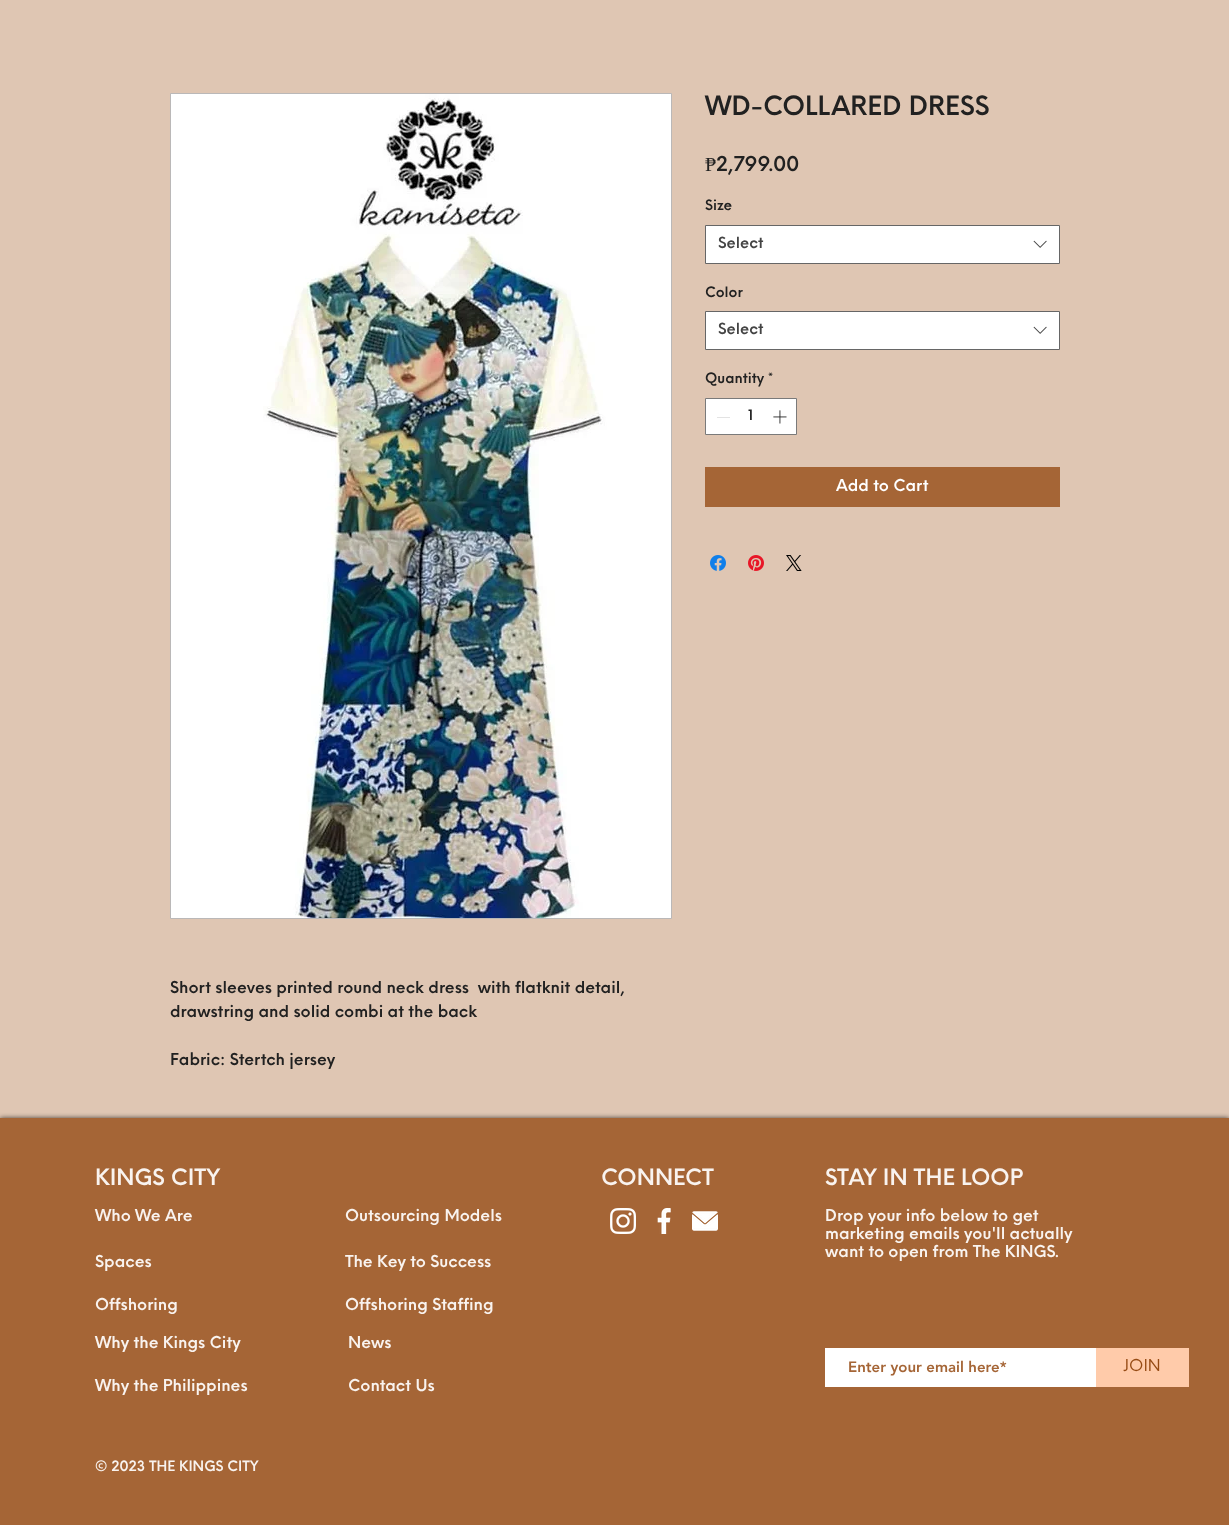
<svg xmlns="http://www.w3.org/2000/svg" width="1229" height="1525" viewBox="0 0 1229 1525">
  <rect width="100%" height="100%" fill="#dfc6b3"/>
  <path d="M705.5 225.5h354v38H705.5z" fill="#fff" stroke="#666"/>
  <image x="1033" y="240" width="14" height="8" href="img/1.png"/>
  <path d="M705.5 311.5h354v38H705.5z" fill="#fff" stroke="#666"/>
  <image x="1033" y="326" width="14" height="8" href="img/1.png"/>
  <path d="M705.5 398.5h91v36H705.5z" fill="#fff" stroke="#7a7a7a"/>
  <path d="M717 417h13v1H717z" fill="#e3e3e3"/>
  <image x="773" y="410" width="14" height="14" href="img/2.png"/>
  <path d="M705 467h355v40H705z" fill="#a56536"/>
  <image x="710" y="555" width="16" height="16" href="img/3.png"/>
  <image x="748" y="555" width="16" height="16" href="img/4.png"/>
  <image x="786" y="555" width="16" height="16" href="img/5.png"/>
  <path d="M170.5 93.5h501v825H170.5z" fill="none" stroke="#bab8b8"/>
  <image x="171" y="94" width="500" height="824" href="img/6.png"/>
  <path d="M0 1118h1229v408H0z" fill="#000000b3" filter="blur(2.5px)"/>
  <path d="M0 1118h1229v407H0z" fill="#a56536"/>
  <image x="610" y="1208" width="26" height="26" href="img/7.png"/>
  <image x="657" y="1208" width="14" height="26" href="img/8.png"/>
  <image x="692" y="1211" width="26" height="20" href="img/9.png"/>
  <path d="M825 1348h271v39H825z" fill="#fff"/>
  <path d="M1096 1348h93v39H1096z" fill="#ffcbaa"/>
  <text x="705" y="115" font-family="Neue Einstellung" font-size="26" font-weight="600" fill="#212121">WD-COLLARED DRESS</text>
  <text x="705" y="171" font-family="Liberation Serif" font-size="20" fill="#212121">₱</text>
  <text x="716" y="171" font-family="Neue Einstellung" font-size="20" font-weight="600" fill="#212121">2,799.00</text>
  <text x="705" y="210" font-family="Neue Einstellung" font-size="14" font-weight="600" fill="#212121">Size</text>
  <text x="718" y="248" font-family="Neue Einstellung" font-size="15" font-weight="600" fill="#444">Select</text>
  <text x="705" y="297" font-family="Neue Einstellung" font-size="14" font-weight="600" fill="#212121">Color</text>
  <text x="718" y="334" font-family="Neue Einstellung" font-size="15" font-weight="600" fill="#444">Select</text>
  <g font-family="Neue Einstellung" font-size="14" font-weight="600" fill="#212121">
    <text x="705" y="383">Quantity *</text>
    <text x="748" y="420">1</text>
  </g>
  <text x="836" y="491" font-family="Neue Einstellung" font-size="16" font-weight="600" fill="#fff">Add to Cart</text>
  <g font-family="Neue Einstellung" font-size="16" font-weight="600" fill="#212121">
    <text x="170" y="993" xml:space="preserve">Short sleeves printed round neck dress  with flatknit detail,</text>
    <text x="170" y="1017">drawstring and solid combi at the back</text>
    <text x="170" y="1065">Fabric: Stertch jersey</text>
  </g>
  <g font-family="Neue Einstellung" font-size="22" font-weight="600" fill="#f9f3ef">
    <text x="95" y="1185">KINGS CITY</text>
    <text x="601" y="1185">CONNECT</text>
    <text x="825" y="1185">STAY IN THE LOOP</text>
  </g>
  <g font-family="Neue Einstellung" font-size="16" font-weight="600" fill="#f9f3ef">
    <text x="95" y="1221">Who We Are</text>
    <text x="345" y="1221">Outsourcing Models</text>
    <text x="825" y="1221">Drop your info below to get</text>
    <text x="825" y="1239">marketing emails you'll actually</text>
    <text x="825" y="1257">want to open from The KINGS.</text>
    <text x="95" y="1267">Spaces</text>
    <text x="345" y="1267">The Key to Success</text>
    <text x="95" y="1310">Offshoring</text>
    <text x="345" y="1310">Offshoring Staffing</text>
    <text x="95" y="1348">Why the Kings City</text>
    <text x="348" y="1348">News</text>
  </g>
  <text x="848" y="1372" font-family="'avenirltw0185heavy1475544'" font-size="15" font-weight="900" fill="#a56536">Enter your email here*</text>
  <text x="1123" y="1371" font-family="Neue Einstellung" font-size="16" fill="#964b14">JOIN</text>
  <g font-family="Neue Einstellung" font-size="16" font-weight="600" fill="#f9f3ef">
    <text x="95" y="1391">Why the Philippines</text>
    <text x="348" y="1391">Contact Us</text>
  </g>
  <text x="95" y="1471" font-family="Neue Einstellung" font-size="14" font-weight="600" fill="#f9f3ef">© 2023 THE KINGS CITY</text>
</svg>
